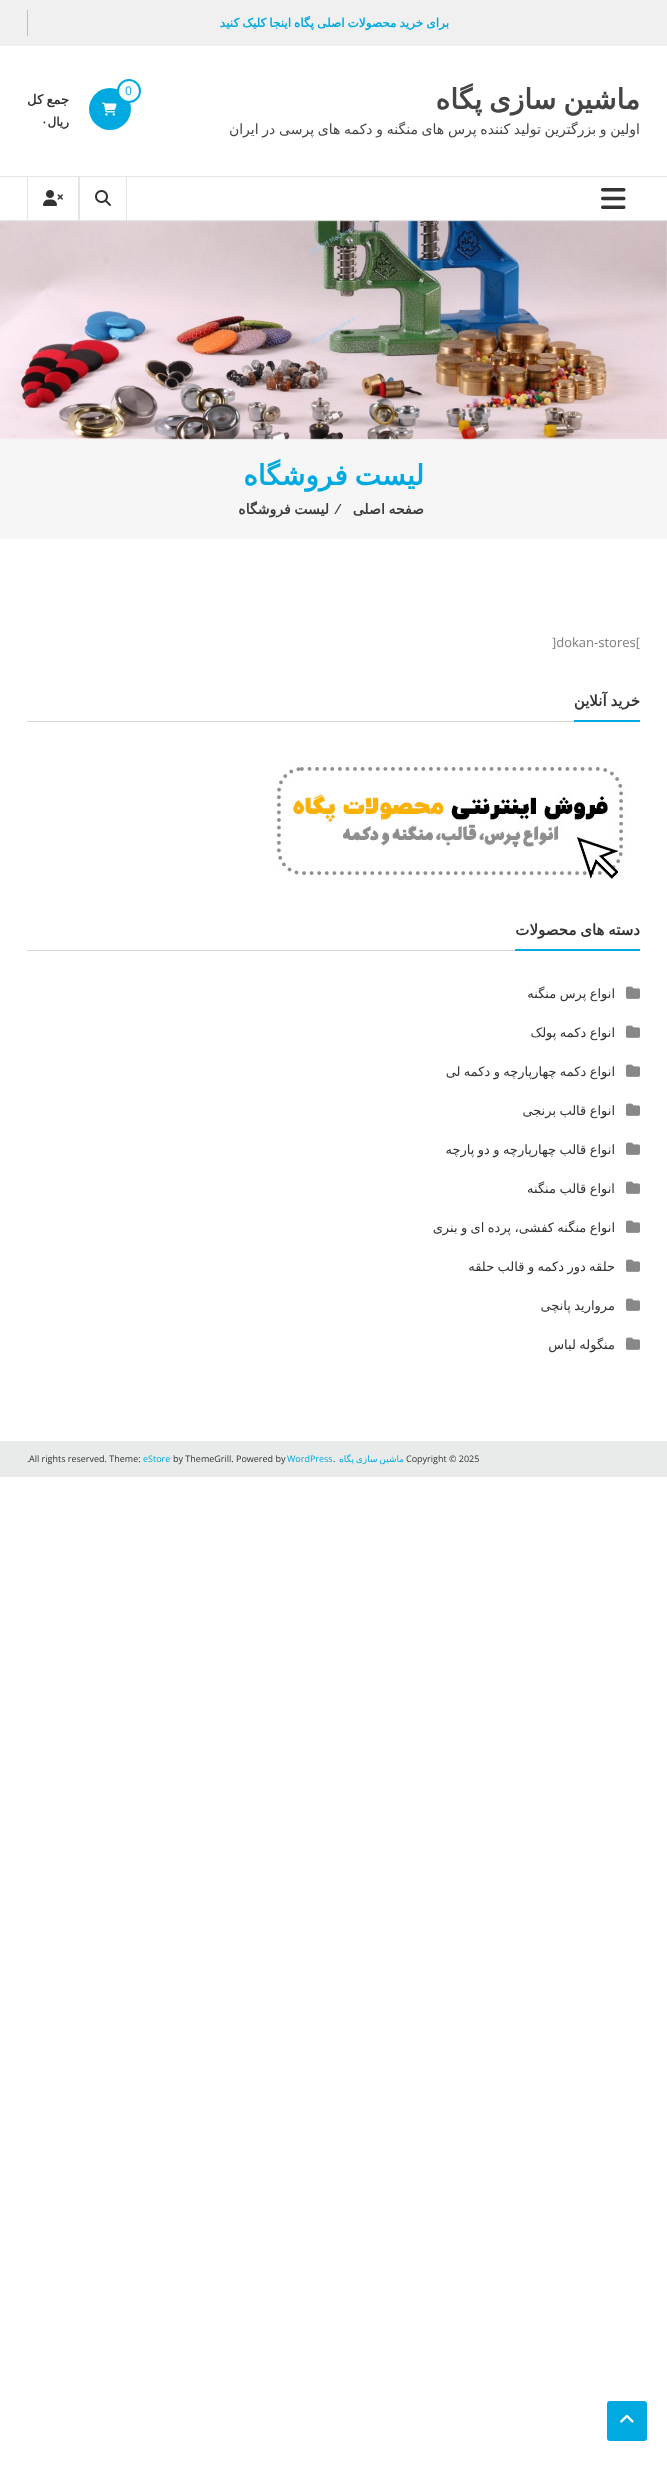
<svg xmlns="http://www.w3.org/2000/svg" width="667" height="2471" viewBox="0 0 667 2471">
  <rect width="100%" height="100%" fill="#fff"/>
  <path d="M0 0h667v46H0z" fill="#f0f0f0"/>
  <path d="M27 10h1v26H27z" fill="#c0bfbf"/>
  <circle cx="110" cy="109" r="21" fill="#00a9e0"/>
  <circle cx="129" cy="91" r="11" fill="#fff" stroke="#00a9e0" stroke-width="2"/>
  <image x="102" y="102" width="15" height="14" href="img/1.png"/>
  <path d="M0 176h667v1H0z" fill="#e5e5e5"/>
  <path d="M0 220h667v1H0z" fill="#e5e5e5"/>
  <image x="601" y="188" width="25" height="21" href="img/2.png"/>
  <path d="M126 177h1v43H126z" fill="#e5e5e5"/>
  <image x="95" y="190" width="16" height="16" href="img/3.png"/>
  <path d="M78 177h2v43H78z" fill="#e5e5e5"/>
  <path d="M27 177h1v43H27z" fill="#e5e5e5"/>
  <image x="43" y="190" width="20" height="16" href="img/4.png"/>
  <path d="M0 439h667v100H0z" fill="#f6f6f6"/>
  <image x="0" y="220" width="667" height="220" href="img/5.png"/>
  <path d="M27 721h547v1H27z" fill="#d6d6d6"/>
  <path d="M574 720h66v2H574z" fill="#00a9e0"/>
  <image x="277" y="761" width="351" height="119" href="img/6.png"/>
  <path d="M27 950h488v1H27z" fill="#d6d6d6"/>
  <path d="M515 949h125v2H515z" fill="#00a9e0"/>
  <image x="626" y="986" width="14" height="13" href="img/7.png"/>
  <image x="626" y="1025" width="14" height="13" href="img/7.png"/>
  <image x="626" y="1064" width="14" height="13" href="img/7.png"/>
  <image x="626" y="1103" width="14" height="13" href="img/7.png"/>
  <image x="626" y="1142" width="14" height="13" href="img/7.png"/>
  <image x="626" y="1181" width="14" height="13" href="img/7.png"/>
  <image x="626" y="1220" width="14" height="13" href="img/7.png"/>
  <image x="626" y="1259" width="14" height="13" href="img/7.png"/>
  <image x="626" y="1298" width="14" height="13" href="img/7.png"/>
  <image x="626" y="1337" width="14" height="13" href="img/7.png"/>
  <path d="M0 1441h667v36H0z" fill="#e9ebeb"/>
  <rect x="607" y="2401" width="40" height="40" rx="3" fill="#00a9e0"/>
  <image x="620" y="2414" width="14" height="9" href="img/8.png"/>
  <text x="449" y="27" word-spacing="-0.75" font-family="DejaVu Sans" font-size="12" font-weight="bold" direction="rtl" fill="#00a9e0">برای خرید محصولات اصلی پگاه اینجا کلیک کنید</text>
  <text x="640" y="109" word-spacing="-2" font-family="DejaVu Sans" font-size="28" font-weight="bold" direction="rtl" fill="#454545">ماشین سازی پگاه</text>
  <text x="640" y="134" word-spacing="-0.75" font-family="DejaVu Sans" font-size="14" direction="rtl" fill="#454545">اولین و بزرگترین تولید کننده پرس های منگنه و دکمه های پرسی در ایران</text>
  <text x="125" y="95" font-family="Open Sans" font-size="12" fill="#00a9e0">0</text>
  <text x="69" y="104" word-spacing="-0.75" font-family="DejaVu Sans" font-size="13" font-weight="bold" direction="rtl" fill="#333">جمع کل</text>
  <text x="69" y="126" font-family="DejaVu Sans" font-size="12" font-weight="bold" direction="rtl" fill="#333">ریال</text>
  <text x="41" y="126" font-family="DejaVu Sans" font-size="12" font-weight="bold" fill="#333">۰</text>
  <text x="424" y="485" word-spacing="-2" font-family="DejaVu Sans" font-size="28" font-weight="bold" direction="rtl" fill="#00a9e0">لیست فروشگاه</text>
  <text x="424" y="514" word-spacing="-0.75" font-family="DejaVu Sans" font-size="14" font-weight="bold" direction="rtl" fill="#3b3b3b">صفحه اصلی</text>
  <text x="337" y="514" font-family="Open Sans" font-size="14" font-weight="600" fill="#3b3b3b">⁄</text>
  <text x="329" y="514" word-spacing="-0.75" font-family="DejaVu Sans" font-size="14" font-weight="bold" direction="rtl" fill="#3b3b3b">لیست فروشگاه</text>
  <text x="552" y="647" font-family="Open Sans" font-size="13" fill="#7f7d7d">]dokan-stores[</text>
  <g font-family="DejaVu Sans" font-size="15" font-weight="bold" direction="rtl" fill="#333">
    <text x="640" y="706" word-spacing="-1">خرید آنلاین</text>
    <text x="640" y="935" word-spacing="-1">دسته های محصولات</text>
  </g>
  <g font-family="DejaVu Sans" font-size="13" direction="rtl" fill="#333">
    <text x="615" y="998" word-spacing="-0.75">انواع پرس منگنه</text>
    <text x="615" y="1037" word-spacing="-0.75">انواع دکمه پولک</text>
    <text x="615" y="1076" word-spacing="-0.75">انواع دکمه چهارپارچه و دکمه لی</text>
    <text x="615" y="1115" word-spacing="-0.75">انواع قالب برنجی</text>
    <text x="615" y="1154" word-spacing="-0.75">انواع قالب چهارپارچه و دو پارچه</text>
    <text x="615" y="1193" word-spacing="-0.75">انواع قالب منگنه</text>
    <text x="615" y="1232" word-spacing="-0.75">انواع منگنه کفشی، پرده ای و بنری</text>
    <text x="615" y="1271" word-spacing="-0.75">حلقه دور دکمه و قالب حلقه</text>
    <text x="615" y="1310" word-spacing="-0.75">مروارید پانچی</text>
    <text x="615" y="1349" word-spacing="-0.75">منگوله لباس</text>
  </g>
  <text x="406" y="1462" font-family="Open Sans" font-size="9" fill="#333">Copyright © 2025</text>
  <text x="404" y="1462" word-spacing="-1" font-family="DejaVu Sans" font-size="9" direction="rtl" fill="#00a9e0">ماشین سازی پگاه</text>
  <text x="333" y="1462" font-family="Open Sans" font-size="9" fill="#333">.</text>
  <text x="287" y="1462" font-family="Open Sans" font-size="9" fill="#00a9e0">WordPress</text>
  <text x="173" y="1462" font-family="Open Sans" font-size="9" fill="#333">by ThemeGrill. Powered by</text>
  <text x="143" y="1462" font-family="Open Sans" font-size="9" fill="#00a9e0">eStore</text>
  <g font-family="Open Sans" font-size="9" fill="#333">
    <text x="29" y="1462">All rights reserved. Theme:</text>
    <text x="27" y="1462">.</text>
  </g>
</svg>
